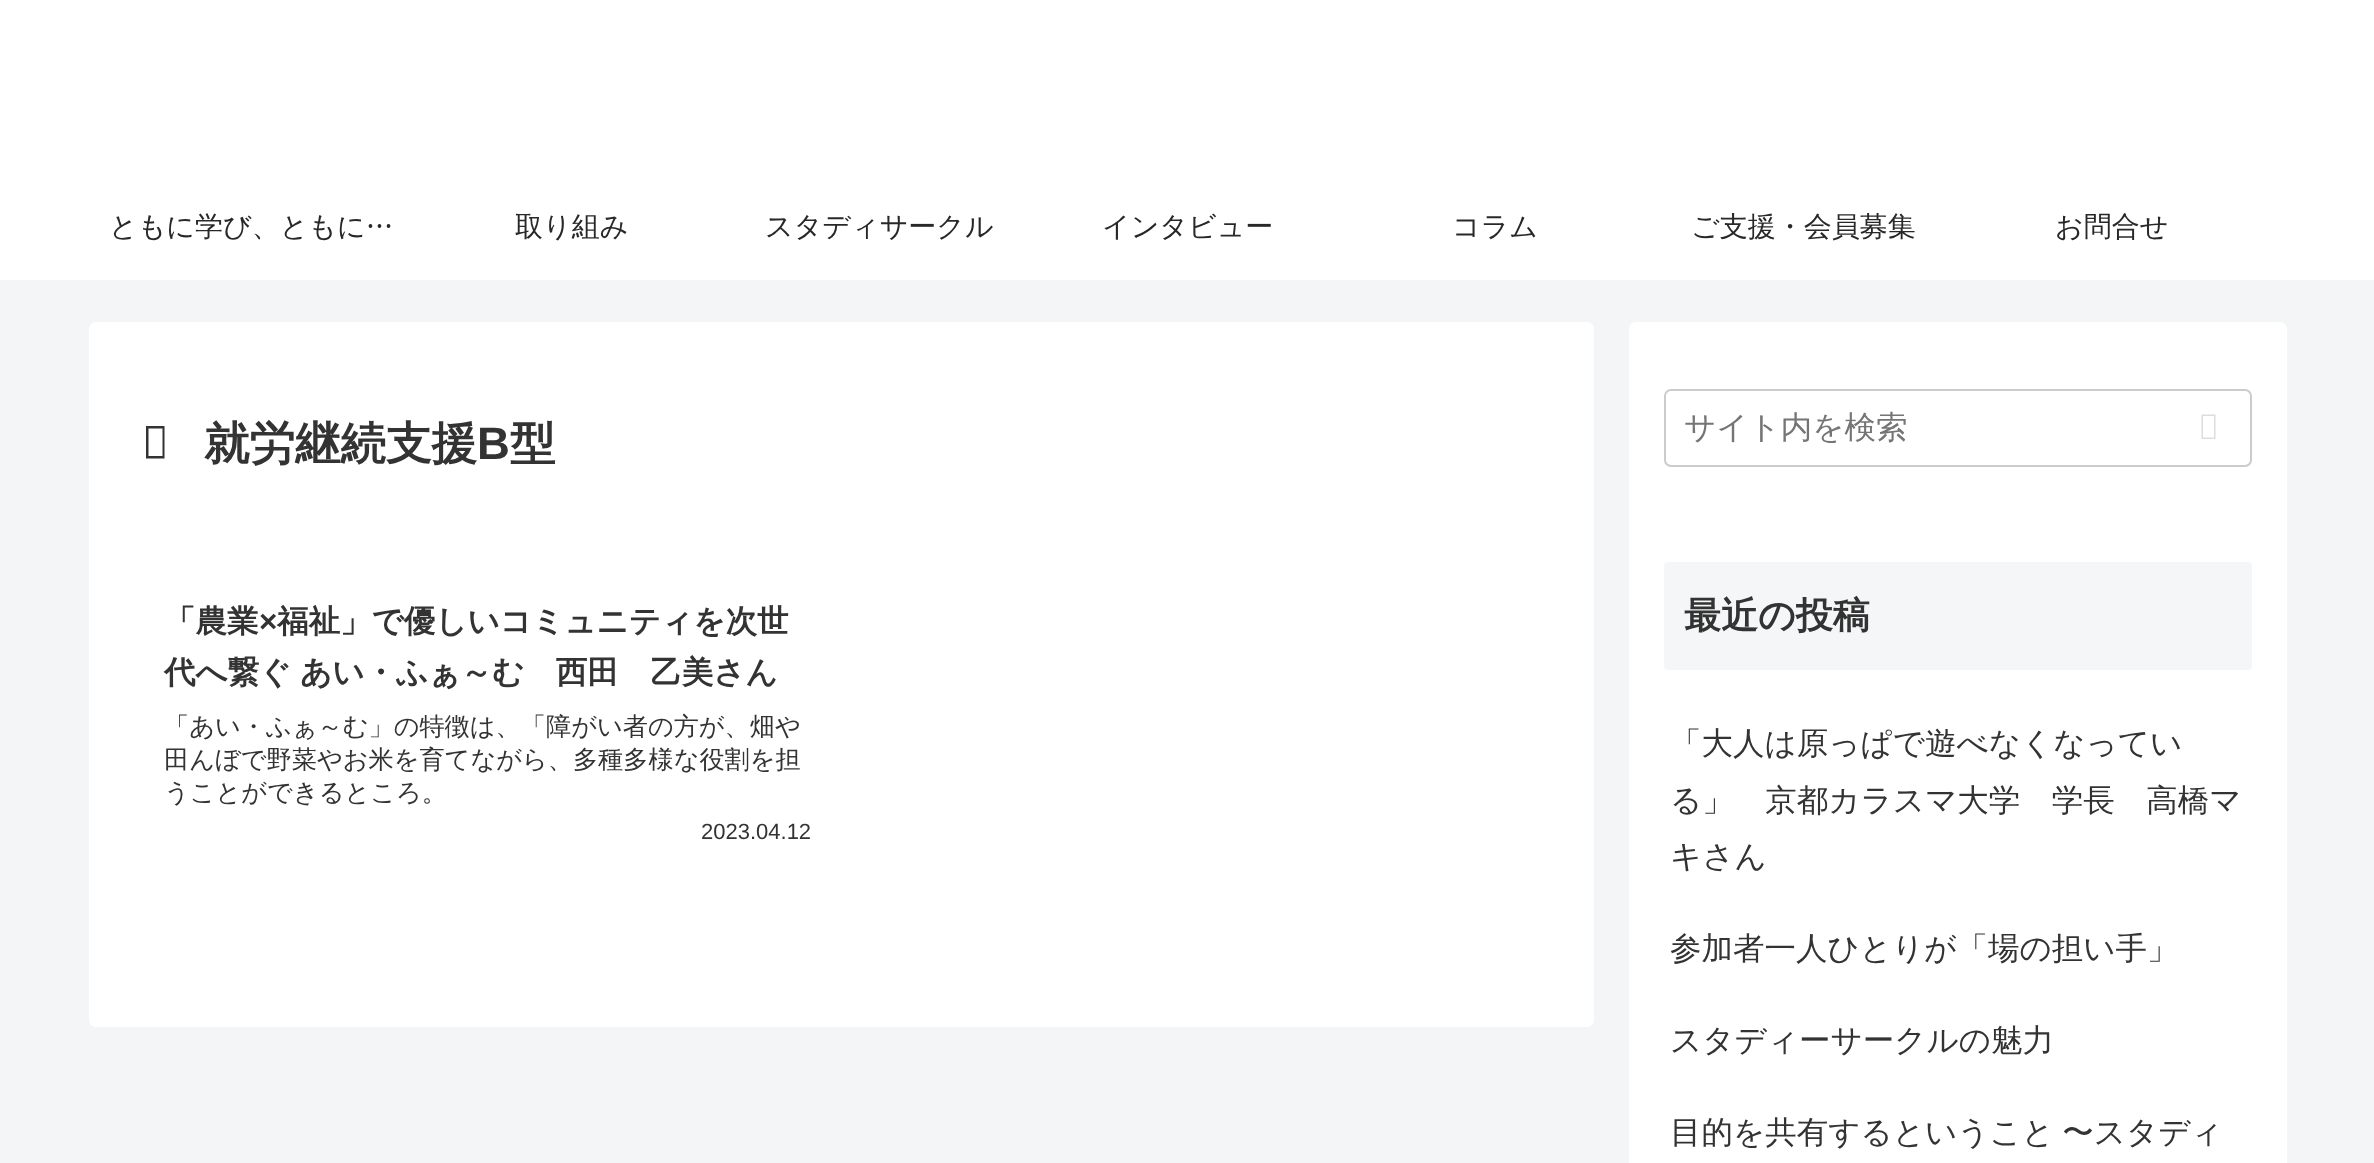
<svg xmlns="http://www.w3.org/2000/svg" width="2374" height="1163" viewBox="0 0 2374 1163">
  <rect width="100%" height="100%" fill="#f4f5f7"/>
  <path d="M0 0h2374v280H0z" fill="#fff"/>
  <rect x="89" y="322" width="1505" height="705" rx="7" fill="#fff"/>
  <path d="M146 458.5V426H164.5V458.5ZM148.5 456H162.5V428.5H148.5Z" fill="#333"/>
  <rect x="1629" y="322" width="658" height="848" rx="7" fill="#fff"/>
  <rect x="1665" y="390" width="586" height="76" rx="6" fill="none" stroke="#ccc" stroke-width="2"/>
  <path d="M2201.5 439V414.5H2215.5V439ZM2203 437.5H2214V416H2203Z" fill="#ddd"/>
  <rect x="1664" y="562" width="588" height="108" rx="4" fill="#f5f6f7"/>
  <g font-family="WenQuanYi Zen Hei" font-size="28" font-weight="500" fill="#282828">
    <text x="109" y="236">ともに学び、ともに…</text>
    <text x="515" y="236">取り組み</text>
    <text x="765" y="236">スタディサークル</text>
    <text x="1102" y="236">インタビュー</text>
    <text x="1452" y="236">コラム</text>
    <text x="1691" y="236">ご支援・会員募集</text>
    <text x="2055" y="236">お問合せ</text>
  </g>
  <text x="204" y="459" font-family="WenQuanYi Zen Hei" font-size="45.5" font-weight="bold" fill="#333">就労継続支援</text>
  <text x="477" y="459" font-family="Liberation Sans" font-size="45.5" font-weight="bold" fill="#333">B</text>
  <text x="510" y="459" font-family="WenQuanYi Zen Hei" font-size="45.5" font-weight="bold" fill="#333">型</text>
  <text x="164" y="632" font-family="WenQuanYi Zen Hei" font-size="31.5" font-weight="bold" fill="#333">「農業</text>
  <text x="259" y="632" font-family="Liberation Sans" font-size="31.5" font-weight="bold" fill="#333">×</text>
  <g font-family="WenQuanYi Zen Hei" font-size="31.5" font-weight="bold" fill="#333">
    <text x="277" y="632">福祉」で優しいコミュニティを次世</text>
    <text x="164" y="683">代へ繋ぐ</text>
    <text x="300" y="683">あい・ふぁ～む　西田　乙美さん</text>
  </g>
  <g font-family="WenQuanYi Zen Hei" font-size="25.2" font-weight="500" fill="#333">
    <text x="164" y="735">「あい・ふぁ～む」の特徴は、「障がい者の方が、畑や</text>
    <text x="164" y="768">田んぼで野菜やお米を育てながら、多種多様な役割を担</text>
    <text x="164" y="801">うことができるところ。</text>
  </g>
  <text x="701" y="839" font-family="Liberation Sans" font-size="22" fill="#333">2023.04.12</text>
  <text x="1684" y="438" font-family="WenQuanYi Zen Hei" font-size="31.5" font-weight="500" fill="#757575">サイト内を検索</text>
  <text x="1684" y="628" font-family="WenQuanYi Zen Hei" font-size="37" font-weight="bold" fill="#333">最近の投稿</text>
  <g font-family="WenQuanYi Zen Hei" font-size="31.5" font-weight="500" fill="#333">
    <text x="1670" y="754">「大人は原っぱで遊べなくなってい</text>
    <text x="1670" y="811">る」　京都カラスマ大学　学長　高橋マ</text>
    <text x="1670" y="867">キさん</text>
    <text x="1670" y="959">参加者一人ひとりが「場の担い手」</text>
    <text x="1670" y="1051">スタディーサークルの魅力</text>
    <text x="1670" y="1143" word-spacing="-1">目的を共有するということ 〜スタディ</text>
  </g>
</svg>
